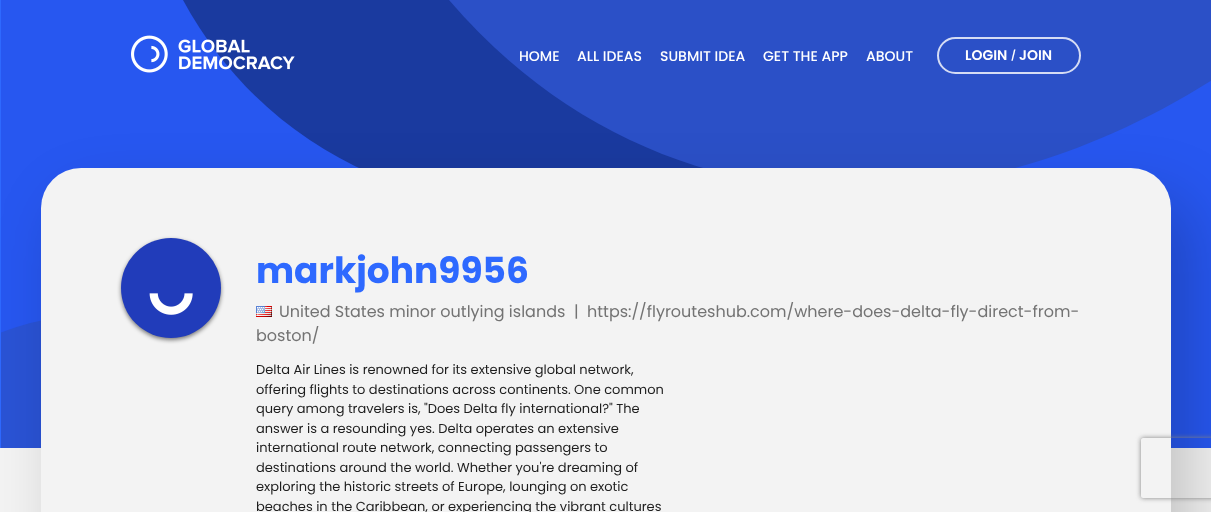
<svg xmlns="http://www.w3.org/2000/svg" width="1211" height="512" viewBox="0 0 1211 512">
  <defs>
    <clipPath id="clip1"><path d="M1 0h1210v448H1z"/></clipPath>
    <clipPath id="clip2"><path d="M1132 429H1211V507H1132ZM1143 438H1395C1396 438 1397 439 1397 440V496C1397 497 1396 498 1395 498H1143C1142 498 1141 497 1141 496V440C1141 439 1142 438 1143 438Z" clip-rule="evenodd"/></clipPath>
  </defs>
  <rect width="100%" height="100%" fill="#f3f3f3"/>
  <path d="M0 0h1v448H0z" fill="#2e69ff"/>
  <path d="M1 0h1210v448H1z" fill="#2757f0"/>
  <g clip-path="url(#clip1)">
    <path d="M479 448C337 302 115 288 0 333V448H479" fill="#2a53d5"/>
  </g>
  <path d="M183 0C385 372 986 191 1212 36V0H183" fill="#1a3a9f"/>
  <path d="M449 0C642 225 945 248 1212 80V0H449" fill="#2b50c7"/>
  <image x="131" y="35" width="164" height="38" href="img/1.png"/>
  <rect x="938" y="38" width="142" height="35" rx="17.5" fill="none" stroke="#d5dcf4" stroke-width="2"/>
  <rect x="61" y="200" width="1130" height="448" rx="40" fill="#00000033" filter="blur(32px)"/>
  <rect x="41" y="168" width="1130" height="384" rx="40" fill="#f3f3f3"/>
  <rect x="121" y="240" width="100" height="100" rx="50" fill="#00000080" filter="blur(2px)"/>
  <image x="121" y="238" width="100" height="100" href="img/2.png"/>
  <image x="256" y="306" width="16" height="11" href="img/3.png"/>
  <g clip-path="url(#clip2)">
    <rect x="1141" y="438" width="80" height="60" rx="2" fill="#808080" filter="blur(2.5px)"/>
  </g>
  <g font-family="Poppins" font-size="14" font-weight="500" fill="#fff">
    <text x="519" y="61">HOME</text>
    <text x="577" y="61">ALL IDEAS</text>
    <text x="660" y="61">SUBMIT IDEA</text>
    <text x="763" y="61">GET THE APP</text>
    <text x="866" y="61">ABOUT</text>
  </g>
  <text x="965" y="60" font-family="Poppins" font-size="14" font-weight="600" fill="#fff">LOGIN</text>
  <text x="1011" y="59" font-family="Poppins" font-size="10" font-weight="600" fill="#fff">/</text>
  <text x="1019" y="60" font-family="Poppins" font-size="14" font-weight="600" fill="#fff">JOIN</text>
  <text x="256" y="283" font-family="Poppins" font-size="36" font-weight="bold" fill="#2e69ff">markjohn9956</text>
  <g font-family="Poppins" font-size="16" fill="#737373">
    <text x="279" y="317">United States minor outlying islands</text>
    <text x="574" y="317">|</text>
    <text x="587" y="317">https://flyrouteshub.com/where-does-delta-fly-direct-from-</text>
    <text x="256" y="341">boston/</text>
  </g>
  <g font-family="Poppins" font-size="13" fill="#1e1e1e">
    <text x="256" y="374">Delta Air Lines is renowned for its extensive global network,</text>
    <text x="256" y="394">offering flights to destinations across continents. One common</text>
    <text x="256" y="413">query among travelers is, "Does Delta fly international?" The</text>
    <text x="256" y="433">answer is a resounding yes. Delta operates an extensive</text>
    <text x="256" y="452">international route network, connecting passengers to</text>
    <text x="256" y="472">destinations around the world. Whether you're dreaming of</text>
    <text x="256" y="491">exploring the historic streets of Europe, lounging on exotic</text>
    <text x="256" y="511">beaches in the Caribbean, or experiencing the vibrant cultures</text>
  </g>
</svg>
